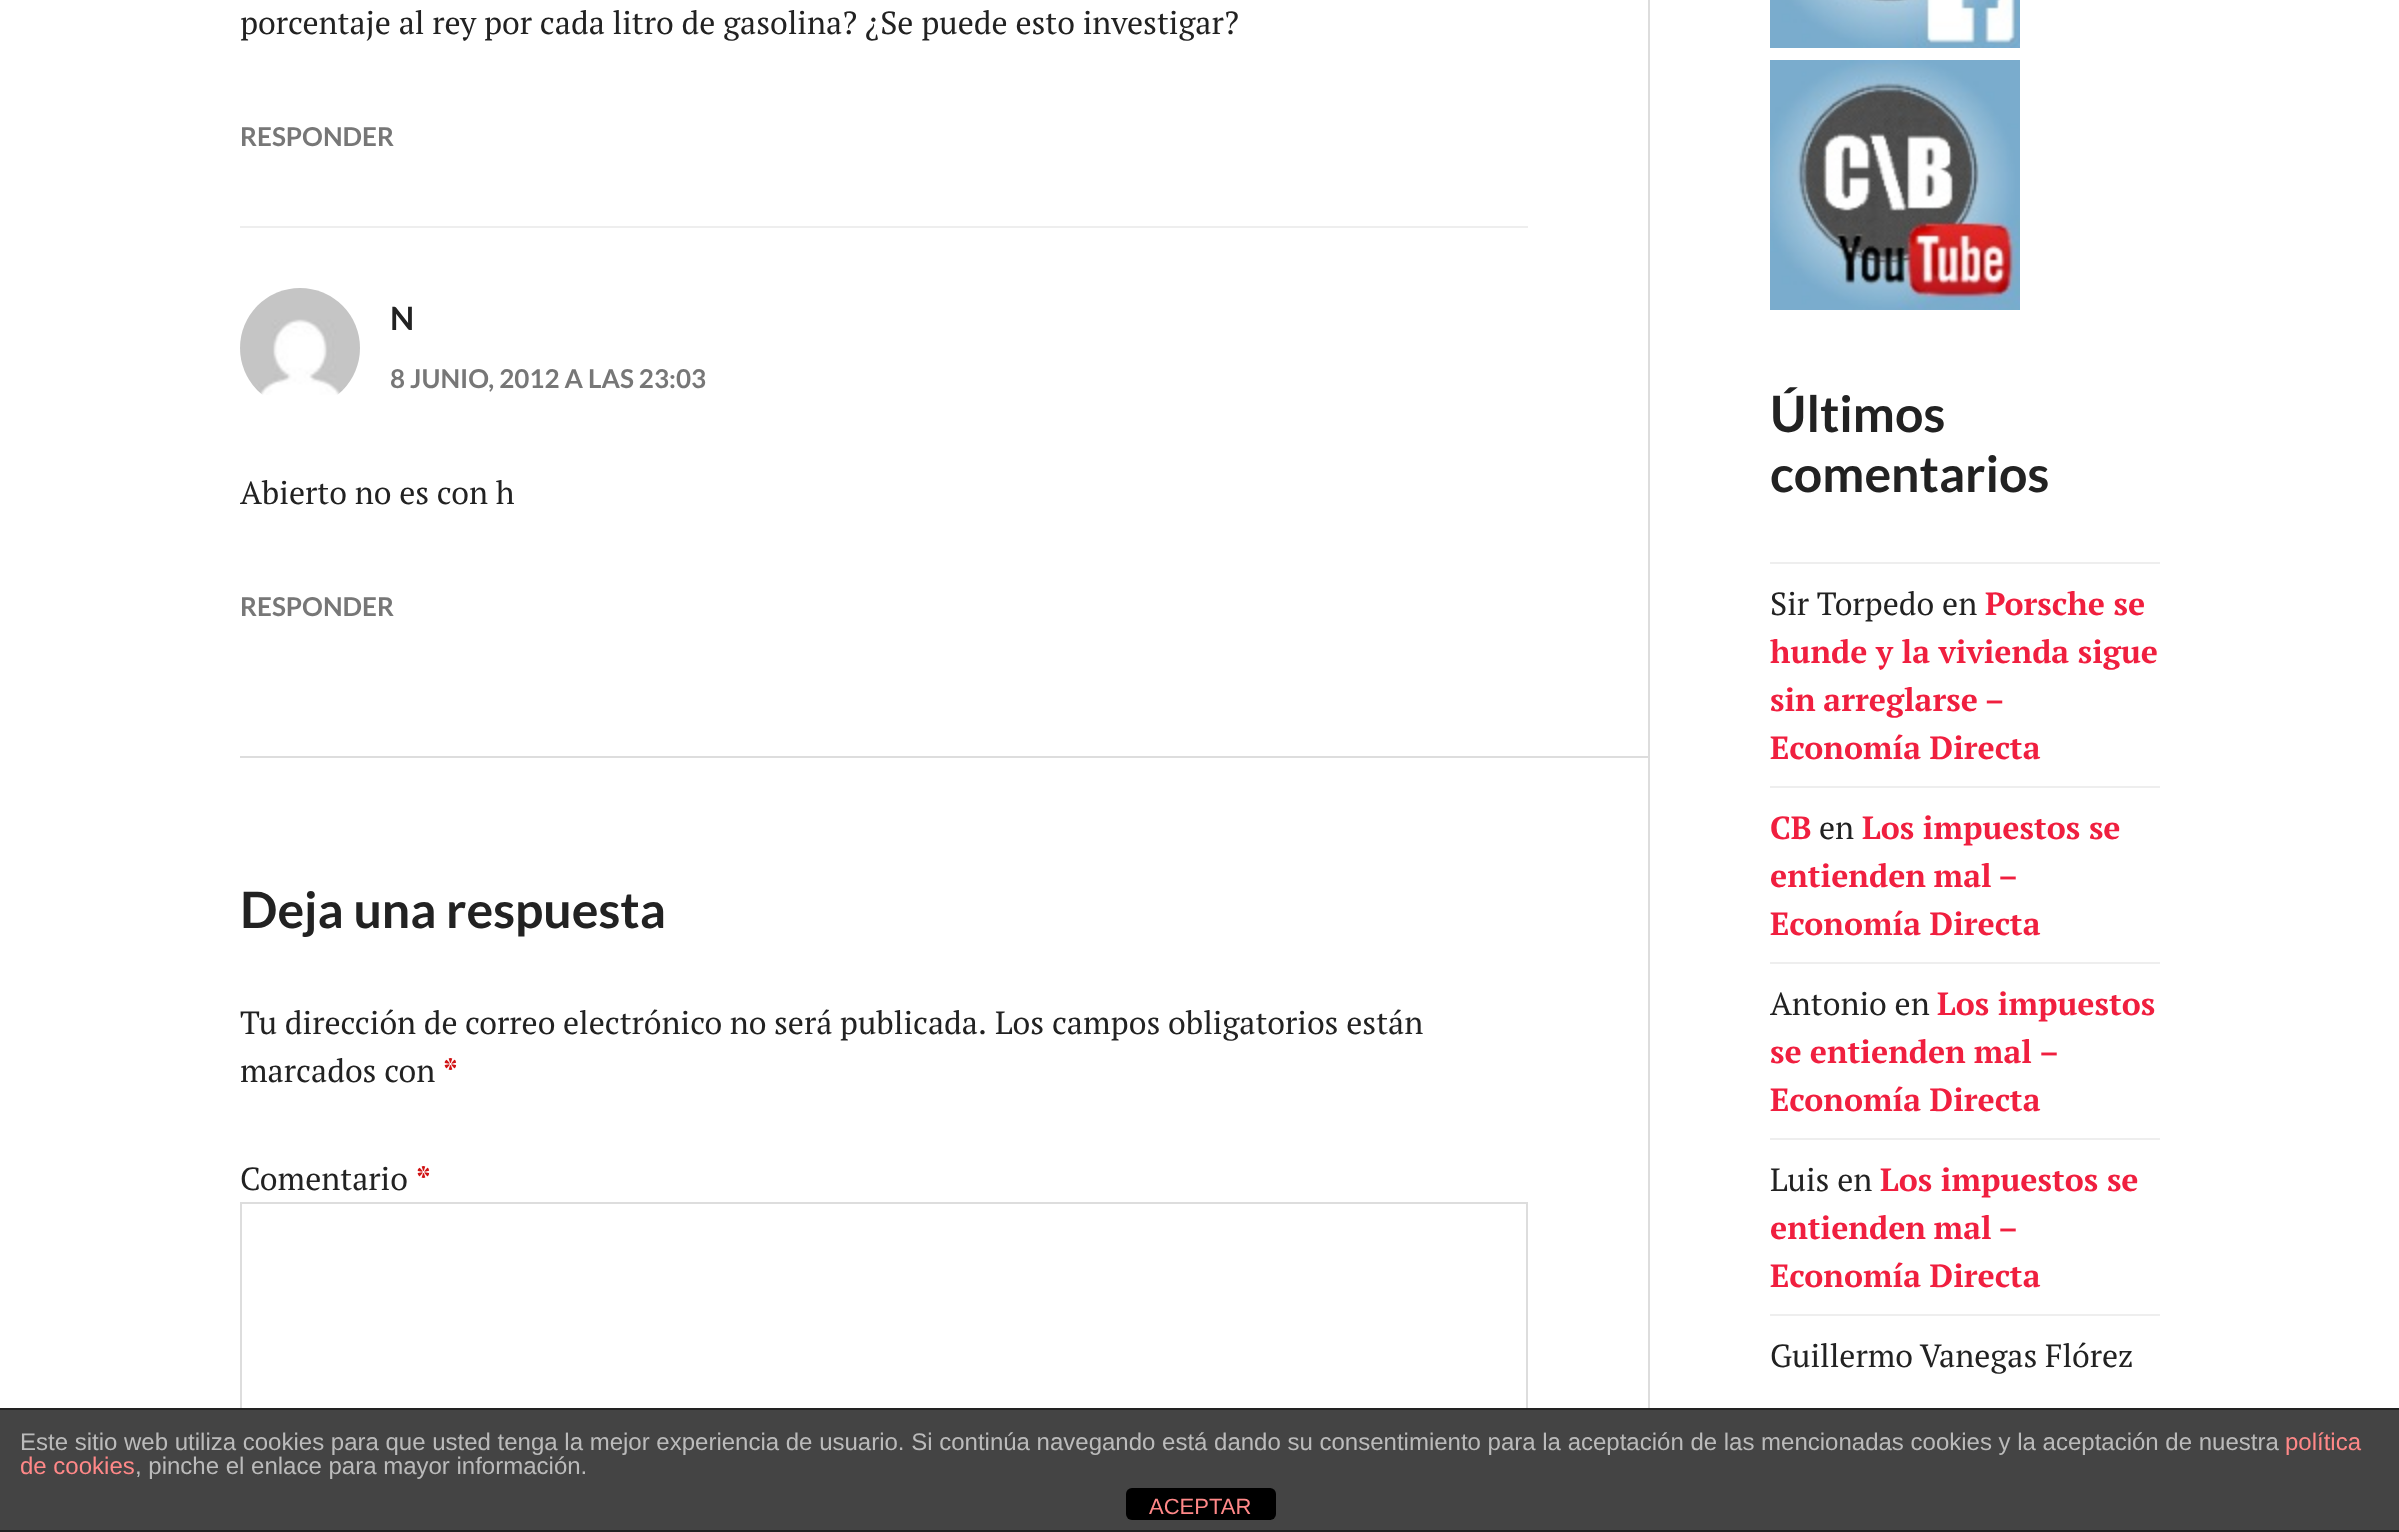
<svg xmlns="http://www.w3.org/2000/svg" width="2399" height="1532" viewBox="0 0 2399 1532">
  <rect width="100%" height="100%" fill="#fff"/>
  <path d="M1648 0h2v1408H1648z" fill="#ddd"/>
  <path d="M240 756h1408v2H240z" fill="#ddd"/>
  <path d="M240 226h1288v2H240z" fill="#eee"/>
  <image x="240" y="288" width="120" height="107" href="img/1.png"/>
  <path d="M241 1203h1286v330H241z" fill="none" stroke="#ddd" stroke-width="2"/>
  <image x="1770" y="0" width="250" height="48" href="img/2.png"/>
  <image x="1770" y="60" width="250" height="250" href="img/3.png"/>
  <path d="M1770 562h390v2H1770z" fill="#eee"/>
  <path d="M1770 786h390v2H1770z" fill="#eee"/>
  <path d="M1770 962h390v2H1770z" fill="#eee"/>
  <path d="M1770 1138h390v2H1770z" fill="#eee"/>
  <path d="M1770 1314h390v2H1770z" fill="#eee"/>
  <path d="M0 1410h2399v120H0z" fill="#444"/>
  <path d="M0 1408h2399v2H0z" fill="#222"/>
  <path d="M0 1530h2399v2H0z" fill="#222"/>
  <rect x="1126" y="1488" width="150" height="32" rx="6" fill="#000"/>
  <text x="240" y="34" font-family="PT Serif" font-size="32" fill="#222">porcentaje al rey por cada litro de gasolina? ¿Se puede esto investigar?</text>
  <text x="240" y="146" font-family="Lato" font-size="26" font-weight="bold" fill="#777">RESPONDER</text>
  <text x="390" y="330" font-family="Lato" font-size="32" font-weight="bold" fill="#222">N</text>
  <text x="390" y="388" font-family="Lato" font-size="26" font-weight="bold" fill="#777">8 JUNIO, 2012 A LAS 23:03</text>
  <text x="240" y="504" font-family="PT Serif" font-size="32" fill="#222">Abierto no es con h</text>
  <text x="240" y="616" font-family="Lato" font-size="26" font-weight="bold" fill="#777">RESPONDER</text>
  <text x="240" y="928" font-family="Lato" font-size="50" font-weight="bold" fill="#222">Deja una respuesta</text>
  <g font-family="PT Serif" font-size="32" fill="#222">
    <text x="240" y="1034" word-spacing="-0.25">Tu dirección de correo electrónico no será publicada.</text>
    <text x="995" y="1034">Los campos obligatorios están</text>
    <text x="240" y="1082">marcados con</text>
  </g>
  <text x="443" y="1082" font-family="PT Serif" font-size="32" font-weight="bold" fill="#d11415">*</text>
  <text x="240" y="1190" font-family="PT Serif" font-size="32" fill="#222">Comentario</text>
  <text x="416" y="1190" font-family="PT Serif" font-size="32" font-weight="bold" fill="#d11415">*</text>
  <g font-family="Lato" font-size="50" font-weight="bold" fill="#222">
    <text x="1770" y="432">Últimos</text>
    <text x="1770" y="492">comentarios</text>
  </g>
  <text x="1770" y="615" font-family="PT Serif" font-size="32" fill="#222">Sir Torpedo en</text>
  <g font-family="PT Serif" font-size="32" font-weight="bold" fill="#f01f3f">
    <text x="1985" y="615">Porsche se</text>
    <text x="1770" y="663">hunde y la vivienda sigue</text>
    <text x="1770" y="711" word-spacing="-1">sin arreglarse –</text>
    <text x="1770" y="759">Economía Directa</text>
    <text x="1770" y="839">CB</text>
  </g>
  <text x="1819" y="839" font-family="PT Serif" font-size="32" fill="#222">en</text>
  <g font-family="PT Serif" font-size="32" font-weight="bold" fill="#f01f3f">
    <text x="1862" y="839">Los impuestos se</text>
    <text x="1770" y="887" word-spacing="-1">entienden mal –</text>
    <text x="1770" y="935">Economía Directa</text>
  </g>
  <text x="1770" y="1015" font-family="PT Serif" font-size="32" fill="#222">Antonio en</text>
  <g font-family="PT Serif" font-size="32" font-weight="bold" fill="#f01f3f">
    <text x="1937" y="1015">Los impuestos</text>
    <text x="1770" y="1063" word-spacing="-0.5">se entienden mal –</text>
    <text x="1770" y="1111">Economía Directa</text>
  </g>
  <text x="1770" y="1191" font-family="PT Serif" font-size="32" fill="#222">Luis en</text>
  <g font-family="PT Serif" font-size="32" font-weight="bold" fill="#f01f3f">
    <text x="1880" y="1191">Los impuestos se</text>
    <text x="1770" y="1239" word-spacing="-1">entienden mal –</text>
    <text x="1770" y="1287">Economía Directa</text>
  </g>
  <text x="1770" y="1367" font-family="PT Serif" font-size="32" fill="#222">Guillermo Vanegas Flórez</text>
  <text x="20" y="1450" font-family="Liberation Sans" font-size="24" fill="#bbb">Este sitio web utiliza cookies para que usted tenga la mejor experiencia de usuario. Si continúa navegando está dando su consentimiento para la aceptación de las mencionadas cookies y la aceptación de nuestra</text>
  <g font-family="Liberation Sans" font-size="24" fill="#f88">
    <text x="2285" y="1450">política</text>
    <text x="20" y="1474">de cookies</text>
  </g>
  <text x="135" y="1474" font-family="Liberation Sans" font-size="24" fill="#bbb">, pinche el enlace para mayor información.</text>
  <text x="1149" y="1514" font-family="Liberation Sans" font-size="22" fill="#f88">ACEPTAR</text>
</svg>
